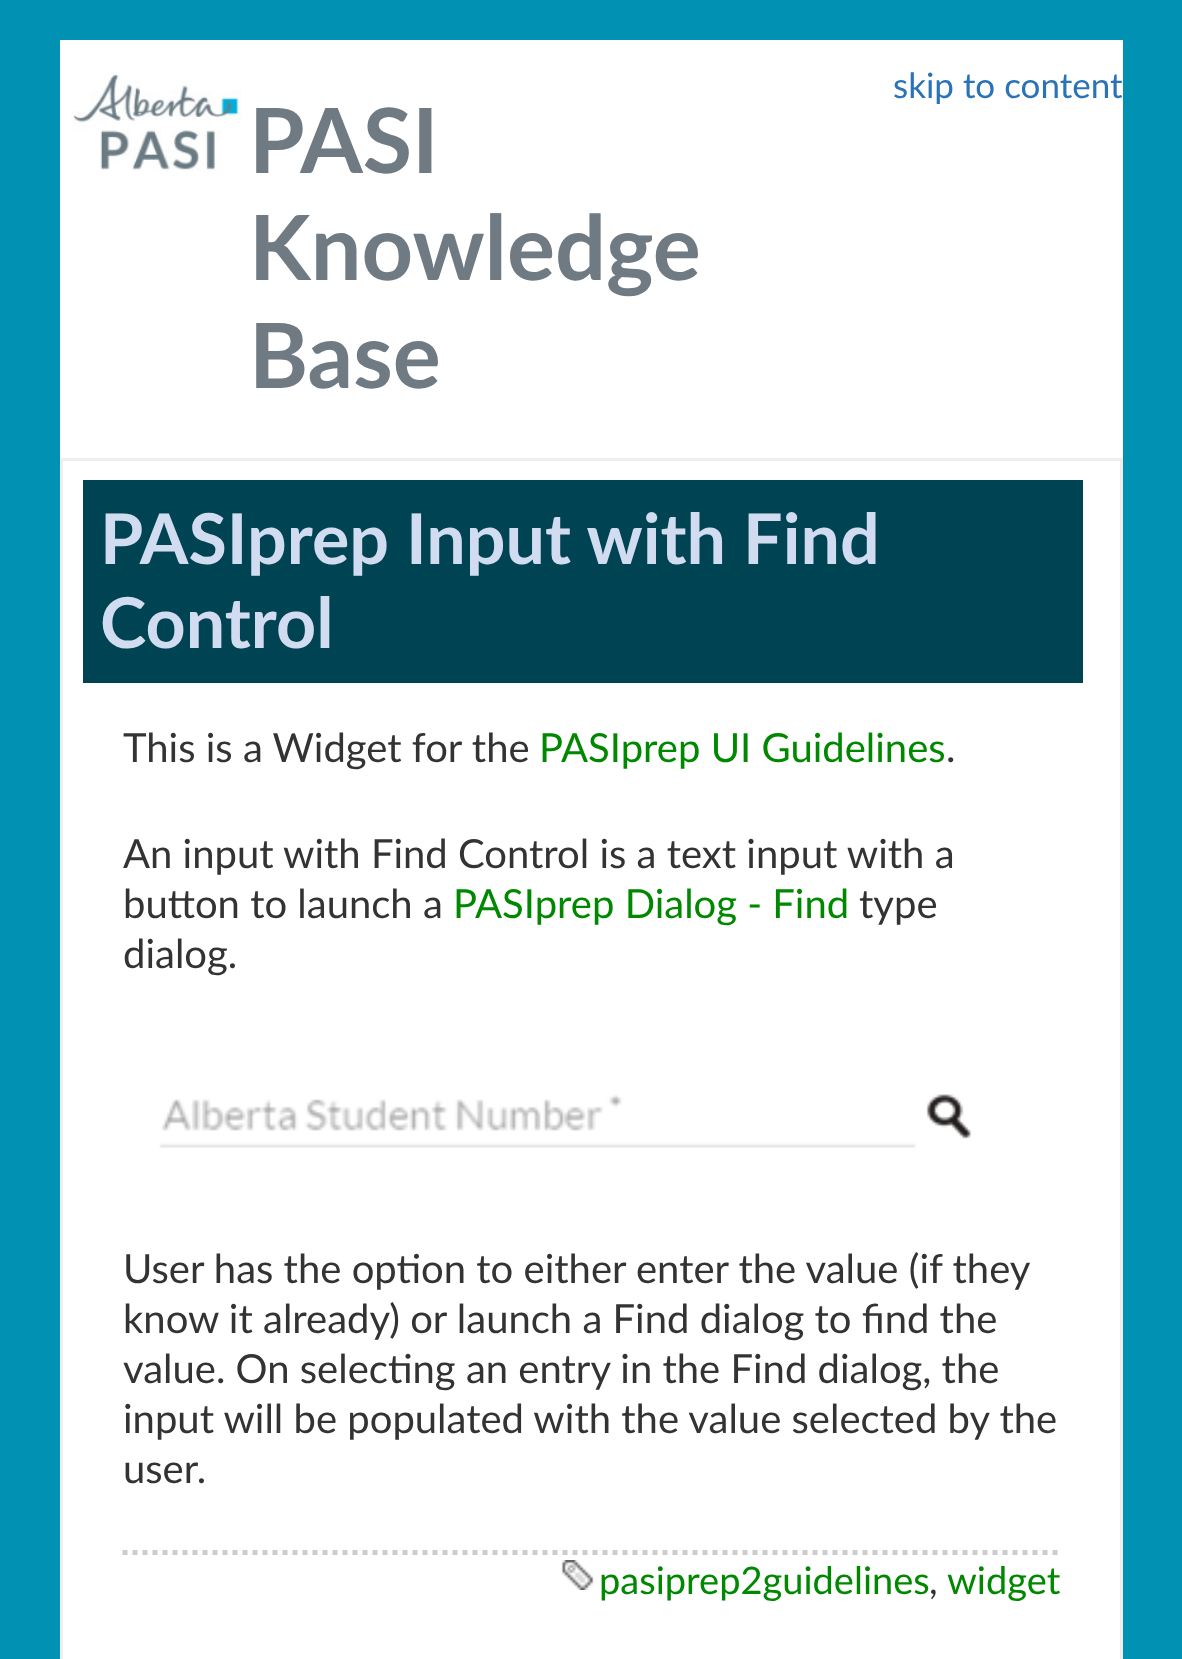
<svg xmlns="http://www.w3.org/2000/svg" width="1182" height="1659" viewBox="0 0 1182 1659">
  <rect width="100%" height="100%" fill="#0091b3"/>
  <path d="M60 40h1063v418H60z" fill="#fff"/>
  <image x="71" y="72" width="171" height="99" href="img/1.png"/>
  <path d="M61.5 459.5h1060v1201H61.5z" fill="#fff" stroke="#eee" stroke-width="3"/>
  <path d="M83 480h1000v203H83z" fill="#004454"/>
  <image x="159" y="1094" width="812" height="54" href="img/2.png"/>
  <path d="M122.5 1552.5H1060" fill="none" stroke="#ccc" stroke-width="5" stroke-dasharray="5 5"/>
  <image x="561" y="1560" width="33" height="30" href="img/3.png"/>
  <text x="893" y="98" font-family="Lato" font-size="35" fill="#2b73b7">skip to content</text>
  <g font-family="Lato" font-size="90" font-weight="bold" fill="#6f7a82">
    <text x="249" y="173">PASI</text>
    <text x="249" y="280">Knowledge</text>
    <text x="249" y="388">Base</text>
  </g>
  <g font-family="Lato" font-size="70" font-weight="bold" fill="#d2dcf0">
    <text x="100" y="564">PASIprep Input with Find</text>
    <text x="100" y="648">Control</text>
  </g>
  <text x="123" y="762" font-family="Lato" font-size="40" fill="#333">This is a Widget for the</text>
  <text x="539" y="762" font-family="Lato" font-size="40" fill="#080">PASIprep UI Guidelines</text>
  <g font-family="Lato" font-size="40" fill="#333">
    <text x="946" y="762">.</text>
    <text x="123" y="868">An input with Find Control is a text input with a</text>
    <text x="123" y="918">button to launch a</text>
  </g>
  <text x="453" y="918" font-family="Lato" font-size="40" fill="#080">PASIprep Dialog - Find</text>
  <g font-family="Lato" font-size="40" fill="#333">
    <text x="859" y="918">type</text>
    <text x="123" y="968">dialog.</text>
    <text x="123" y="1283">User has the option to either enter the value (if they</text>
    <text x="123" y="1333">know it already) or launch a Find dialog to find the</text>
    <text x="123" y="1383">value. On selecting an entry in the Find dialog, the</text>
    <text x="123" y="1433">input will be populated with the value selected by the</text>
    <text x="123" y="1483">user.</text>
  </g>
  <text x="599" y="1594" font-family="Lato" font-size="38" fill="#080">pasiprep2guidelines</text>
  <text x="929" y="1594" font-family="Lato" font-size="38" fill="#333">,</text>
  <text x="947" y="1594" font-family="Lato" font-size="38" fill="#080">widget</text>
</svg>
